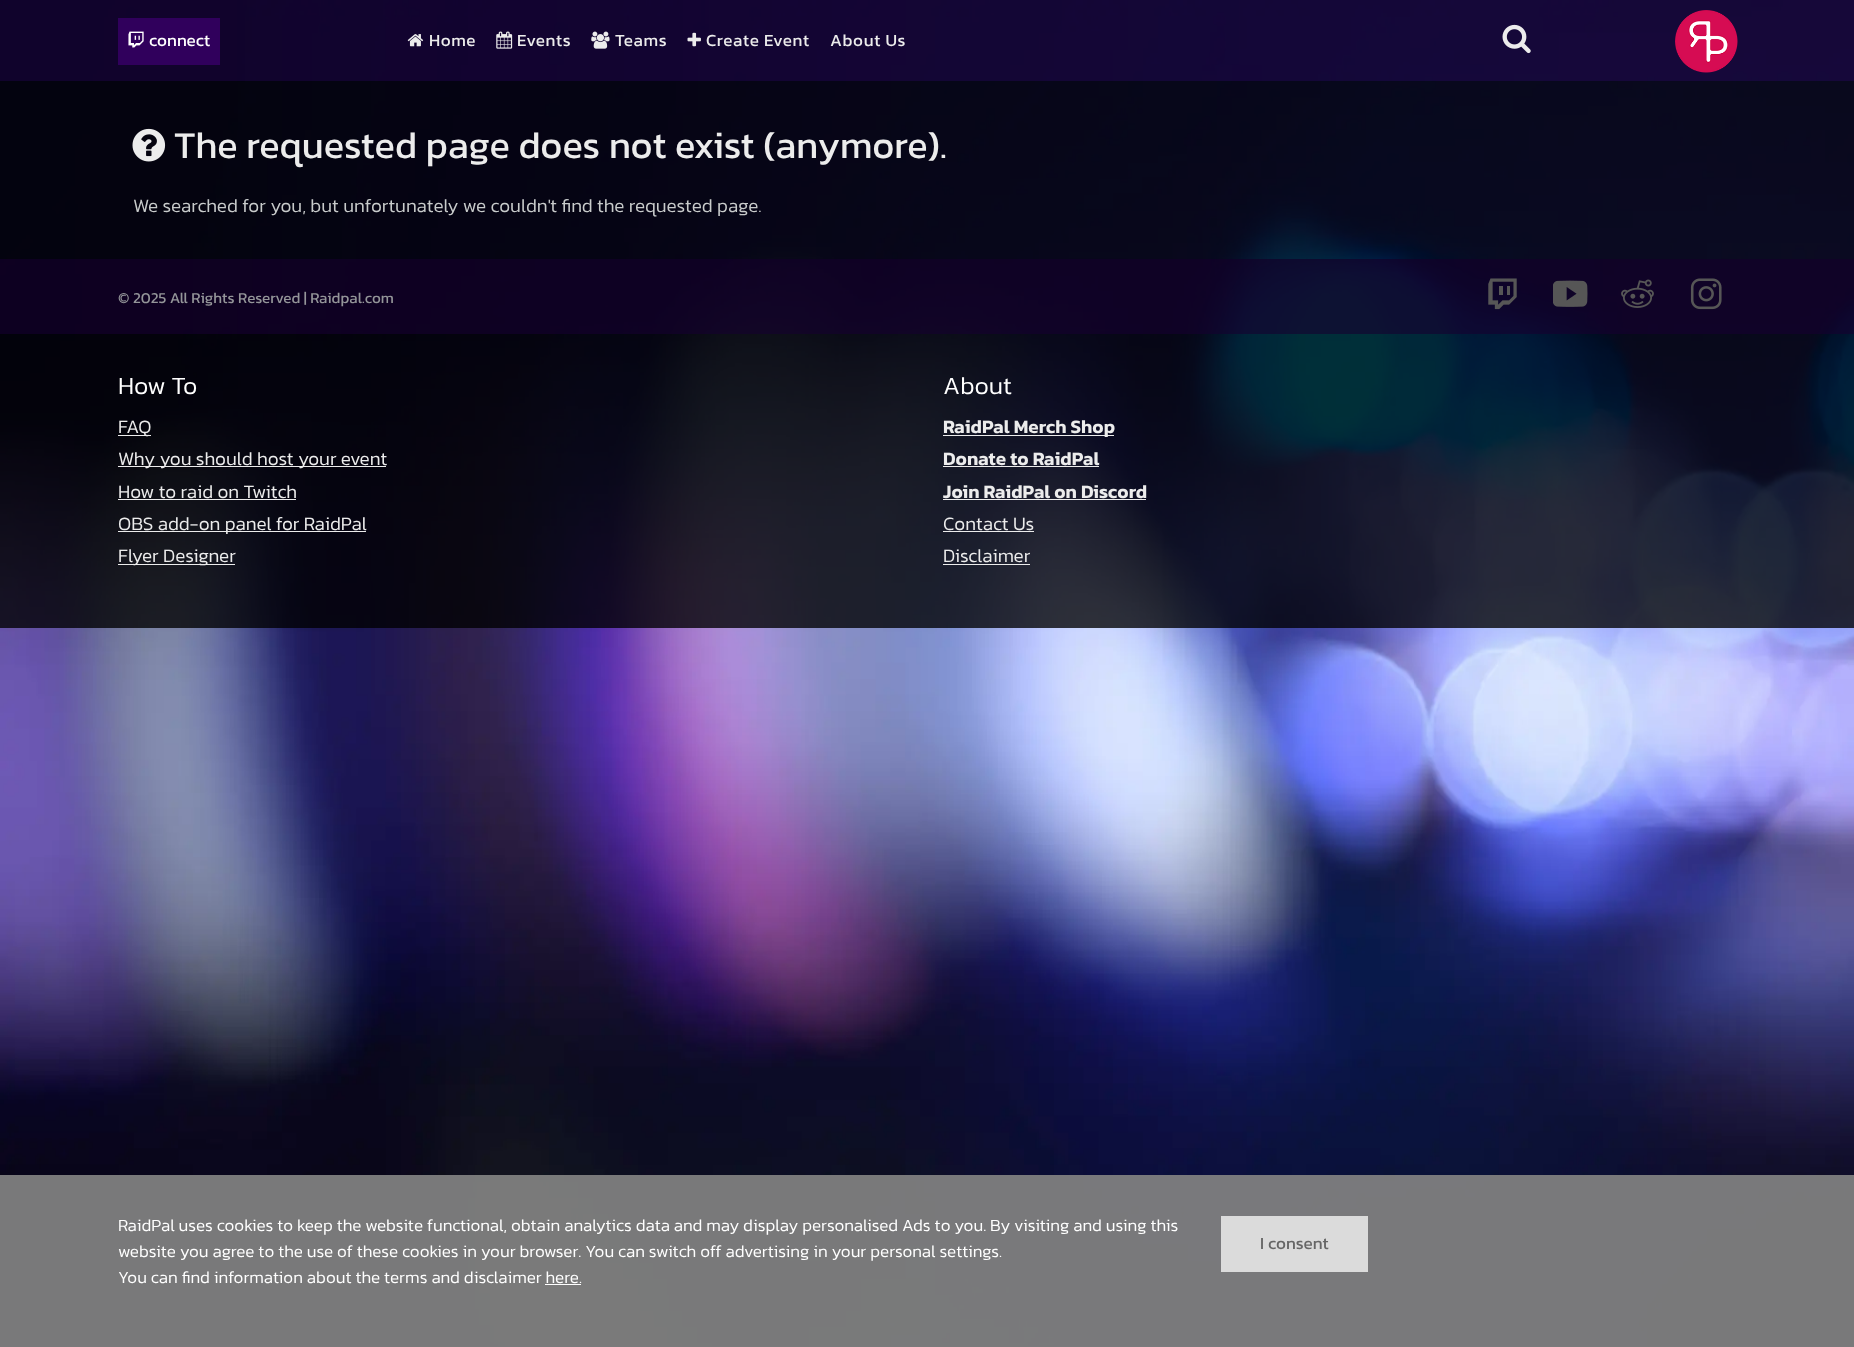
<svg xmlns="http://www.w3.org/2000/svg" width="1854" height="1347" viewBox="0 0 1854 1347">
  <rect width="100%" height="100%" fill="#fff"/>
  <image x="0" y="0" width="1854" height="1347" href="img/1.png"/>
  <path d="M0 0h1854v81H0z" fill="#120029b3"/>
  <path d="M118 18h102v47H118z" fill="#30005c"/>
  <image x="128" y="31" width="16" height="17" href="img/2.png"/>
  <image x="407" y="34" width="17" height="13" href="img/3.png"/>
  <image x="496" y="31" width="17" height="18" href="img/4.png"/>
  <image x="591" y="31" width="19" height="18" href="img/5.png"/>
  <image x="687" y="32" width="14" height="15" href="img/6.png"/>
  <image x="1502" y="24" width="29" height="30" href="img/7.png"/>
  <image x="1675" y="10" width="63" height="63" href="img/8.png"/>
  <path d="M0 81h1854v178H0z" fill="#000000b3"/>
  <image x="132" y="128" width="34" height="34" href="img/9.png"/>
  <path d="M0 334h1854v294H0z" fill="#00000040"/>
  <path d="M0 259h1854v369H0z" fill="#000000b3"/>
  <path d="M0 259h1854v75H0z" fill="#120029b3"/>
  <image x="1488" y="278" width="29" height="32" href="img/10.png"/>
  <image x="1553" y="280" width="35" height="27" href="img/11.png"/>
  <image x="1621" y="279" width="33" height="29" href="img/12.png"/>
  <image x="1690" y="278" width="32" height="32" href="img/13.png"/>
  <path d="M118 435h33v1H118z" fill="#ececec"/>
  <path d="M118 466h268v1H118z" fill="#ececec"/>
  <path d="M118 499h178v1H118z" fill="#ececec"/>
  <path d="M118 531h248v1H118z" fill="#ececec"/>
  <path d="M118 564h117v1H118z" fill="#ececec"/>
  <path d="M943 435h171v1H943z" fill="#ececec"/>
  <path d="M943 466h156v1H943z" fill="#ececec"/>
  <path d="M943 499h203v1H943z" fill="#ececec"/>
  <path d="M943 531h91v1H943z" fill="#ececec"/>
  <path d="M943 564h87v1H943z" fill="#ececec"/>
  <path d="M0 1175h1854v172H0z" fill="#808080f2"/>
  <path d="M545 1284h36v1H545z" fill="#fff"/>
  <path d="M1221 1216h147v56H1221z" fill="#dbdbdb"/>
  <text x="149" y="46" font-family="Kanit" font-size="17.1" fill="#fff">connect</text>
  <g font-family="Kanit" font-size="17.1" letter-spacing="0.6" fill="#ececec">
    <text x="429" y="46">Home</text>
    <text x="517" y="46">Events</text>
    <text x="615" y="46">Teams</text>
    <text x="706" y="46">Create Event</text>
    <text x="830" y="46">About Us</text>
  </g>
  <text x="174" y="158" font-family="Kanit" font-size="38" fill="#ececec">The requested page does not exist (anymore).</text>
  <text x="133" y="212" font-family="Kanit" font-size="19" font-weight="300" fill="#c8cbcb">We searched for you, but unfortunately we couldn't find the requested page.</text>
  <text x="118" y="303" font-family="Kanit" font-size="15.25" fill="#949599">© 2025 All Rights Reserved | Raidpal.com</text>
  <text x="118" y="394" font-family="Kanit" font-size="25" font-weight="300" fill="#fff">How To</text>
  <g font-family="Kanit" font-size="19" font-weight="300" fill="#ececec">
    <text x="118" y="433">FAQ</text>
    <text x="118" y="465">Why you should host your event</text>
    <text x="118" y="498">How to raid on Twitch</text>
    <text x="118" y="530">OBS add-on panel for RaidPal</text>
    <text x="118" y="562">Flyer Designer</text>
  </g>
  <text x="943" y="394" font-family="Kanit" font-size="25" font-weight="300" fill="#fff">About</text>
  <g font-family="Kanit" font-size="19" font-weight="600" fill="#ececec">
    <text x="943" y="433">RaidPal Merch Shop</text>
    <text x="943" y="465">Donate to RaidPal</text>
    <text x="943" y="498">Join RaidPal on Discord</text>
  </g>
  <g font-family="Kanit" font-size="19" font-weight="300" fill="#ececec">
    <text x="943" y="530">Contact Us</text>
    <text x="943" y="562">Disclaimer</text>
  </g>
  <g font-family="Kanit" font-size="17.1" font-weight="300" fill="#fff">
    <text x="118" y="1231">RaidPal uses cookies to keep the website functional, obtain analytics data and may display personalised Ads to you. By visiting and using this</text>
    <text x="118" y="1257">website you agree to the use of these cookies in your browser. You can switch off advertising in your personal settings.</text>
    <text x="118" y="1283">You can find information about the terms and disclaimer here.</text>
  </g>
  <text x="1260" y="1249" font-family="Kanit" font-size="17.1" fill="#666">I consent</text>
</svg>
